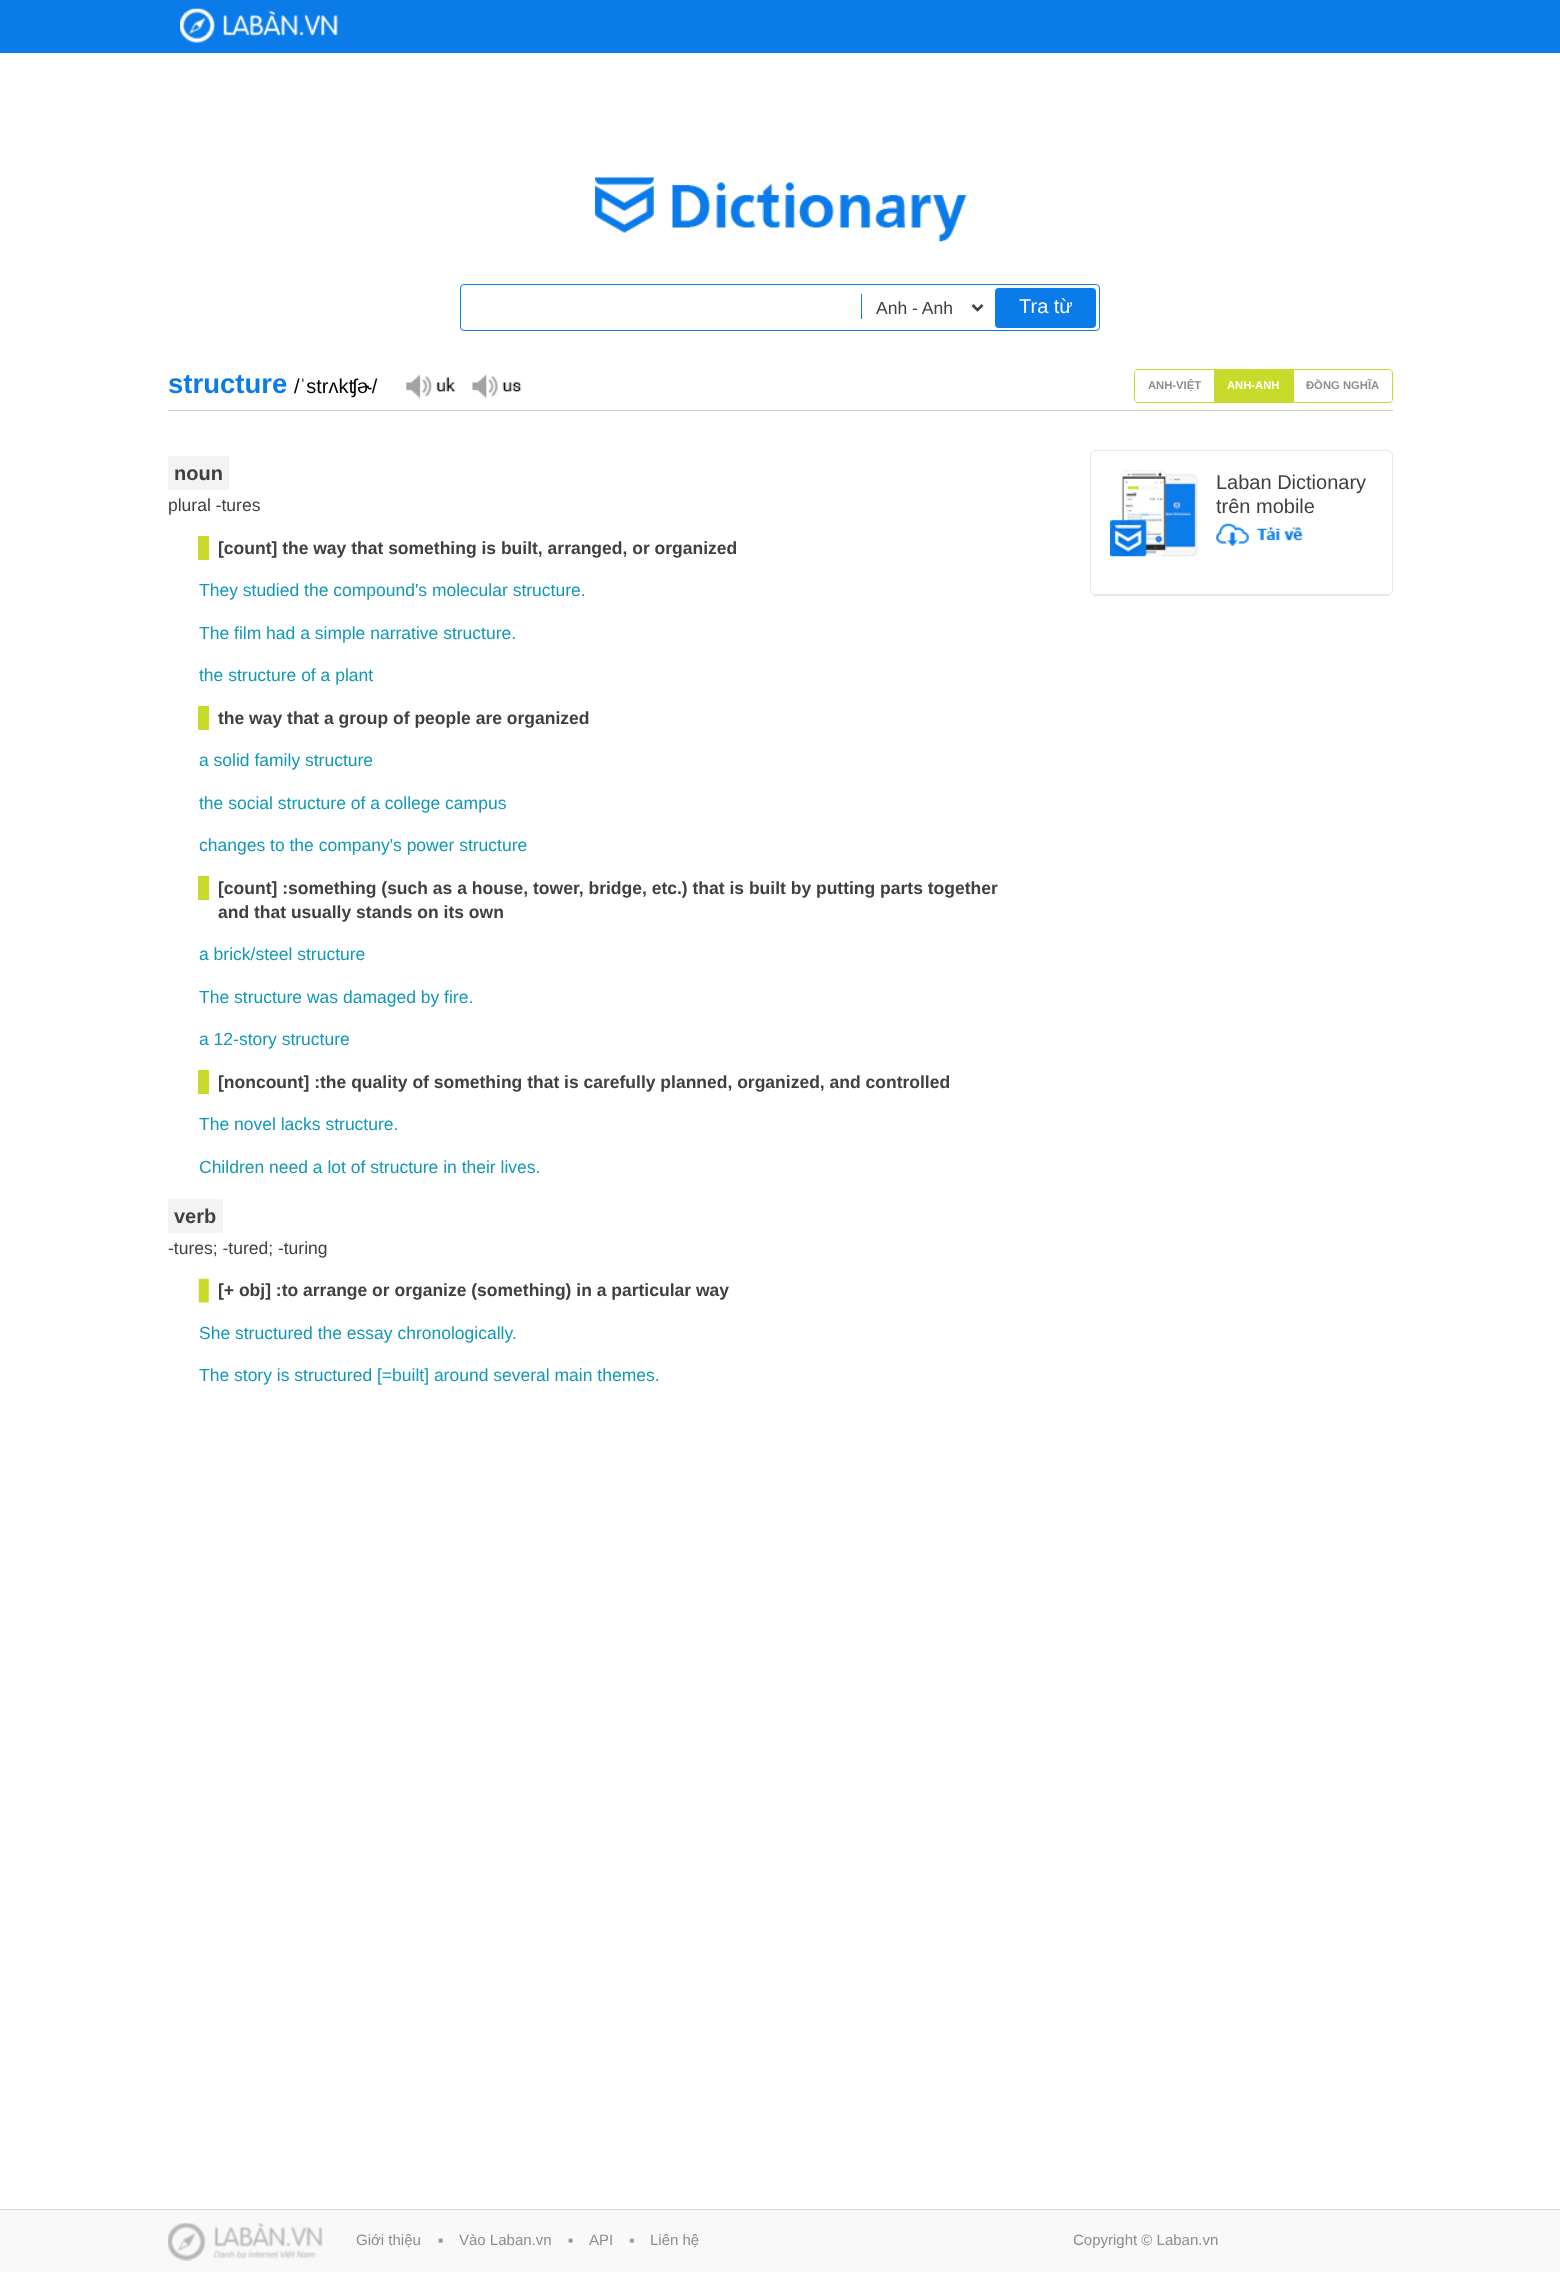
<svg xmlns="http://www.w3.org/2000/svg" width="1560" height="2272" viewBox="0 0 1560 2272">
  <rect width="100%" height="100%" fill="#fff"/>
  <path d="M0 0h1560v53H0z" fill="#0a7be9"/>
  <image x="180" y="8" width="158" height="35" href="img/1.png"/>
  <image x="595" y="177" width="372" height="65" href="img/2.png"/>
  <rect x="460.5" y="284.5" width="639" height="46" rx="3.5" fill="none" stroke="#0a7be9"/>
  <path d="M861 294h1v25H861z" fill="#0a7be9"/>
  <path d="M972.5 305L977.5 310L982.5 305" fill="none" stroke="#404040" stroke-width="2.5"/>
  <rect x="995" y="288" width="101" height="40" rx="4" fill="#0a7be9"/>
  <path d="M168 410h1225v1H168z" fill="#ccc"/>
  <image x="406" y="374" width="49" height="25" href="img/3.png"/>
  <image x="472" y="374" width="50" height="25" href="img/4.png"/>
  <path d="M1138 369.5H1214.5V402.5H1138C1136 402.5 1134.5 401 1134.5 399V373C1134.5 371 1136 369.5 1138 369.5Z" fill="none" stroke="#c9db2a"/>
  <path d="M1215 369h78v34H1215z" fill="#c9db2a"/>
  <path d="M1293.5 369.5H1389C1391 369.5 1392.5 371 1392.5 373V399C1392.5 401 1391 402.5 1389 402.5H1293.5Z" fill="none" stroke="#c9db2a"/>
  <path d="M168 456h61v34H168z" fill="#f3f3f3"/>
  <path d="M198 536h11v24H198z" fill="#c9db2a"/>
  <path d="M198 706h11v24H198z" fill="#c9db2a"/>
  <path d="M198 876h11v24H198z" fill="#c9db2a"/>
  <path d="M198 1070h11v24H198z" fill="#c9db2a"/>
  <path d="M168 1199h55v34H168z" fill="#f3f3f3"/>
  <image x="198" y="1278" width="11" height="25" href="img/5.png"/>
  <rect x="1090.5" y="450.5" width="302" height="145" rx="5.5" fill="none" stroke="#e7e7e7"/>
  <path d="M1094 594h296v1H1094z" fill="#e7e7e7"/>
  <image x="1110" y="470" width="88" height="87" href="img/6.png"/>
  <image x="1216" y="523" width="87" height="24" href="img/7.png"/>
  <path d="M0 2210h1560v62H0z" fill="#f9f9f9"/>
  <path d="M0 2209h1560v1H0z" fill="#d6d6d6"/>
  <image x="168" y="2223" width="155" height="38" href="img/8.png"/>
  <image x="438" y="2238" width="5" height="7" href="img/9.png"/>
  <image x="568" y="2238" width="5" height="7" href="img/9.png"/>
  <image x="629" y="2238" width="6" height="7" href="img/10.png"/>
  <text x="876" y="314" font-family="Liberation Sans" font-size="17.5" fill="#404040">Anh - Anh</text>
  <text x="1019" y="313" font-family="Liberation Sans" font-size="20" fill="#fff">Tra từ</text>
  <text x="168" y="393" font-family="Liberation Sans" font-size="27.5" font-weight="bold" fill="#0a7be9">structure</text>
  <text x="294" y="393" font-family="Liberation Sans" font-size="20" fill="#000">/ˈstrʌkʧɚ/</text>
  <text x="1148" y="389" font-family="Liberation Sans" font-size="11.25" font-weight="bold" fill="#8d8d8d">ANH-VIỆT</text>
  <text x="1227" y="389" font-family="Liberation Sans" font-size="11.25" font-weight="bold" fill="#fff">ANH-ANH</text>
  <text x="1306" y="389" font-family="Liberation Sans" font-size="11.25" font-weight="bold" fill="#8d8d8d">ĐỒNG NGHĨA</text>
  <text x="174" y="480" font-family="Liberation Sans" font-size="20" font-weight="bold" fill="#404040">noun</text>
  <text x="168" y="511" font-family="Liberation Sans" font-size="17.5" fill="#404040">plural -tures</text>
  <text x="218" y="554" font-family="Liberation Sans" font-size="17.5" font-weight="bold" fill="#404040">[count] the way that something is built, arranged, or organized</text>
  <g font-family="Liberation Sans" font-size="17.5" fill="#1198b6">
    <text x="199" y="596">They studied the compound's molecular structure.</text>
    <text x="199" y="639">The film had a simple narrative structure.</text>
    <text x="199" y="681">the structure of a plant</text>
  </g>
  <text x="218" y="724" font-family="Liberation Sans" font-size="17.5" font-weight="bold" fill="#404040">the way that a group of people are organized</text>
  <g font-family="Liberation Sans" font-size="17.5" fill="#1198b6">
    <text x="199" y="766">a solid family structure</text>
    <text x="199" y="809">the social structure of a college campus</text>
    <text x="199" y="851">changes to the company's power structure</text>
  </g>
  <g font-family="Liberation Sans" font-size="17.5" font-weight="bold" fill="#404040">
    <text x="218" y="894">[count] :something (such as a house, tower, bridge, etc.) that is built by putting parts together</text>
    <text x="218" y="918">and that usually stands on its own</text>
  </g>
  <g font-family="Liberation Sans" font-size="17.5" fill="#1198b6">
    <text x="199" y="960">a brick/steel structure</text>
    <text x="199" y="1003">The structure was damaged by fire.</text>
    <text x="199" y="1045">a 12-story structure</text>
  </g>
  <text x="218" y="1088" font-family="Liberation Sans" font-size="17.5" font-weight="bold" fill="#404040">[noncount] :the quality of something that is carefully planned, organized, and controlled</text>
  <g font-family="Liberation Sans" font-size="17.5" fill="#1198b6">
    <text x="199" y="1130">The novel lacks structure.</text>
    <text x="199" y="1173">Children need a lot of structure in their lives.</text>
  </g>
  <text x="174" y="1223" font-family="Liberation Sans" font-size="20" font-weight="bold" fill="#404040">verb</text>
  <text x="168" y="1254" font-family="Liberation Sans" font-size="17.5" fill="#404040">-tures; -tured; -turing</text>
  <text x="218" y="1296" font-family="Liberation Sans" font-size="17.5" font-weight="bold" fill="#404040">[+ obj] :to arrange or organize (something) in a particular way</text>
  <g font-family="Liberation Sans" font-size="17.5" fill="#1198b6">
    <text x="199" y="1339">She structured the essay chronologically.</text>
    <text x="199" y="1381">The story is structured [=built] around several main themes.</text>
  </g>
  <g font-family="Liberation Sans" font-size="20" fill="#404040">
    <text x="1216" y="489">Laban Dictionary</text>
    <text x="1216" y="513">trên mobile</text>
  </g>
  <g font-family="Liberation Sans" font-size="15" fill="#8d8d8d">
    <text x="356" y="2245">Giới thiệu</text>
    <text x="459" y="2245">Vào Laban.vn</text>
    <text x="589" y="2245">API</text>
    <text x="650" y="2245">Liên hệ</text>
    <text x="1073" y="2245">Copyright © Laban.vn</text>
  </g>
</svg>
